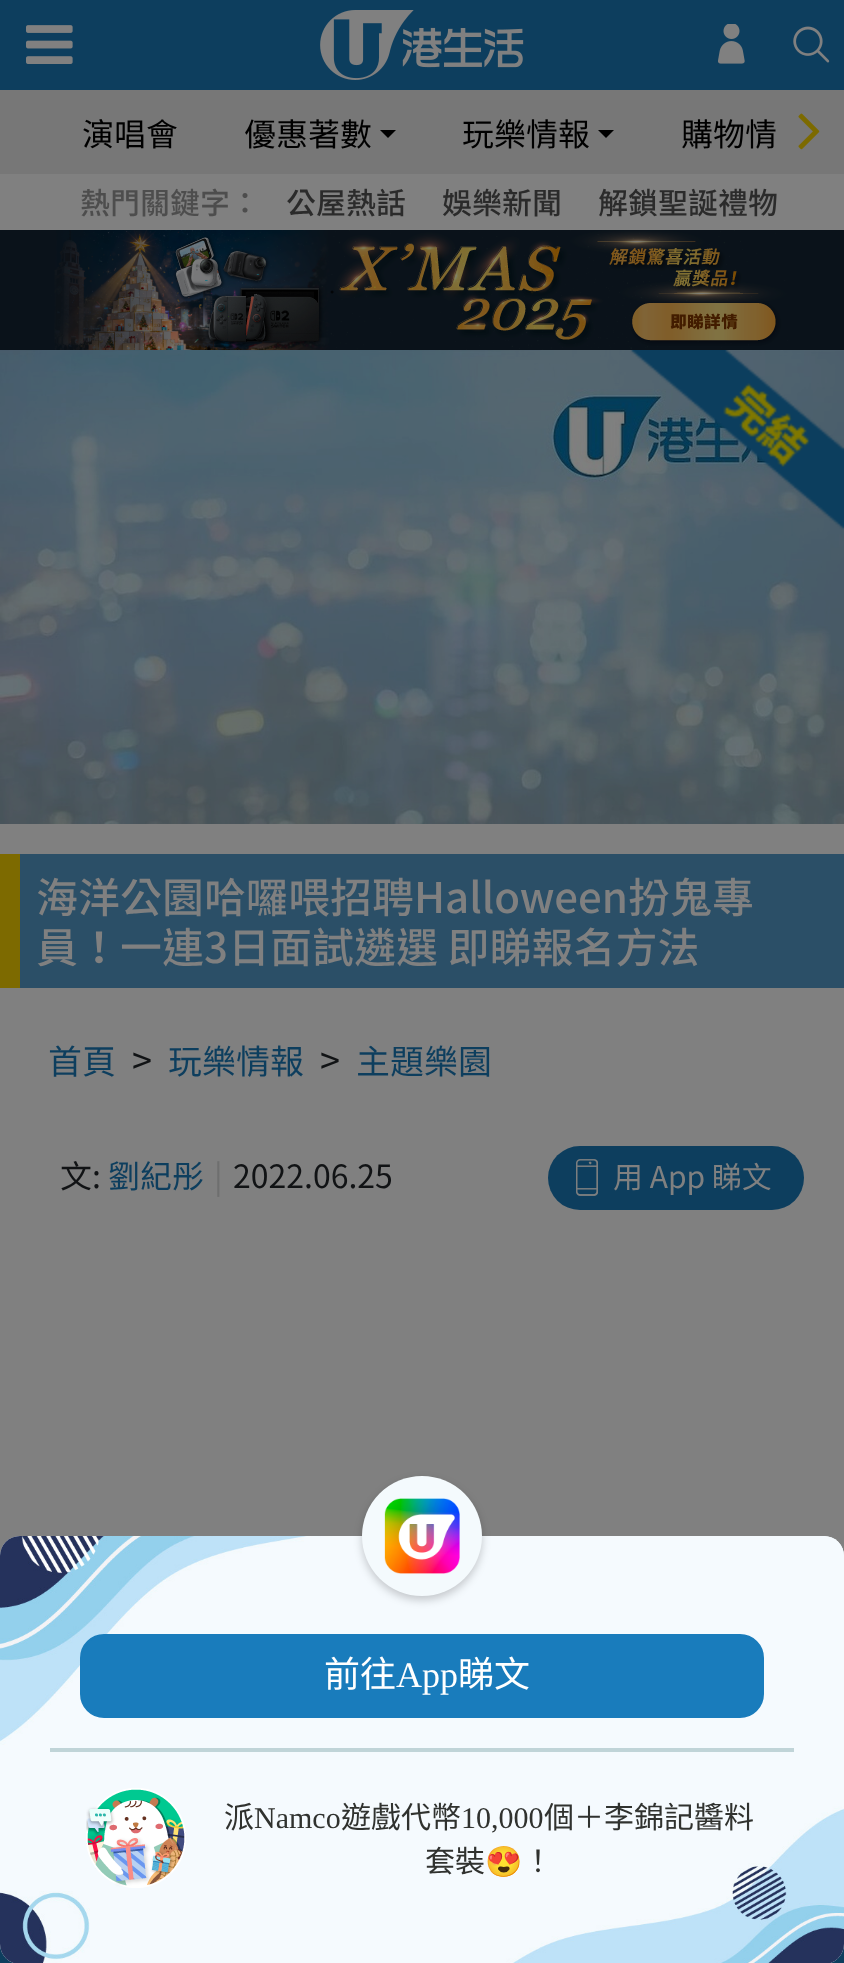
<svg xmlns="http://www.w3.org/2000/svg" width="844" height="1963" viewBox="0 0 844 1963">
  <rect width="100%" height="100%" fill="#808080"/>
  <path d="M0 0h844v90H0z" fill="#0d3e5e"/>
  <image x="26" y="25" width="47" height="39" href="img/1.png"/>
  <image x="320" y="10" width="204" height="70" href="img/2.png"/>
  <image x="718" y="24" width="27" height="40" href="img/3.png"/>
  <image x="793" y="26" width="37" height="37" href="img/4.png"/>
  <path d="M0 90h844v84H0z" fill="#777"/>
  <path d="M380 130H396L388 138Z" fill="#000"/>
  <path d="M598 130H614L606 138Z" fill="#000"/>
  <image x="798" y="113" width="22" height="37" href="img/5.png"/>
  <image x="0" y="230" width="844" height="120" href="img/6.png"/>
  <image x="0" y="350" width="844" height="474" href="img/7.png"/>
  <image x="630" y="350" width="214" height="180" href="img/8.png"/>
  <path d="M20 854h824v134H20z" fill="#2b4f67"/>
  <path d="M0 854h20v134H0z" fill="#7d6a00"/>
  <rect x="548" y="1146" width="256" height="64" rx="32" fill="#0d3e5e"/>
  <image x="576" y="1159" width="22" height="37" href="img/9.png"/>
  <path d="M0 1944h844v19H0z" fill="#0d3e5e"/>
  <rect y="1536" width="844" height="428" rx="20" fill="#f4fafd"/>
  <image x="0" y="1536" width="844" height="427" href="img/10.png"/>
  <path d="M50 1748h744v4H50z" fill="#c0d4d8"/>
  <rect x="362" y="1480" width="120" height="120" rx="60" fill="#00000033" filter="blur(4px)"/>
  <circle cx="422" cy="1536" r="60" fill="#f4fafd"/>
  <image x="384" y="1498" width="76" height="76" href="img/11.png"/>
  <rect x="81" y="1635" width="682" height="82" rx="23" fill="#197cbc" stroke="#197cbc" stroke-width="2"/>
  <image x="86" y="1788" width="100" height="100" href="img/12.png"/>
  <g font-family="Noto Sans TC" font-size="32" fill="#000">
    <text x="82" y="146">演唱會</text>
    <text x="244" y="146">優惠著數</text>
    <text x="462" y="146">玩樂情報</text>
    <text x="681" y="146">購物情</text>
  </g>
  <text x="80" y="214" font-family="Noto Sans TC" font-size="30" font-weight="500" fill="#4d4d4d">熱門關鍵字：</text>
  <g font-family="Noto Sans TC" font-size="30" font-weight="500" fill="#2b2b2b">
    <text x="286" y="214">公屋熱話</text>
    <text x="442" y="214">娛樂新聞</text>
    <text x="598" y="214">解鎖聖誕禮物</text>
  </g>
  <text x="330" y="296" font-family="Liberation Serif" font-size="12" fill="#030507">•</text>
  <text x="530" y="296" font-family="Liberation Serif" font-size="12" fill="#171711">•</text>
  <g font-family="Noto Sans TC" font-size="42" font-weight="500" fill="#808080">
    <text x="36" y="913">海洋公園哈囉喂招聘Halloween扮鬼專</text>
    <text x="36" y="963">員！一連3日面試遴選 即睇報名方法</text>
  </g>
  <text x="48" y="1074" font-family="Noto Sans TC" font-size="34" fill="#0d3e5e">首頁</text>
  <text x="132" y="1074" font-family="Noto Sans TC" font-size="36" fill="#111315">&gt;</text>
  <text x="168" y="1074" font-family="Noto Sans TC" font-size="34" fill="#0d3e5e">玩樂情報</text>
  <text x="320" y="1074" font-family="Noto Sans TC" font-size="36" fill="#111315">&gt;</text>
  <text x="356" y="1074" font-family="Noto Sans TC" font-size="34" fill="#0d3e5e">主題樂園</text>
  <text x="60" y="1188" font-family="Noto Sans TC" font-size="32" fill="#111315">文:</text>
  <text x="108" y="1188" font-family="Noto Sans TC" font-size="32" fill="#0d3e5e">劉紀彤</text>
  <text x="214" y="1188" font-family="Noto Sans TC" font-size="32" fill="#6e6f6f">|</text>
  <text x="233" y="1188" font-family="Noto Sans TC" font-size="32" fill="#111315">2022.06.25</text>
  <text x="613" y="1188" font-family="Noto Sans TC" font-size="30" fill="#808080">用 App 睇文</text>
  <text x="324" y="1687" font-family="Noto Sans CJK HK" font-size="36" fill="#fff">前往</text>
  <text x="396" y="1687" font-family="Liberation Serif" font-size="36" fill="#fff">App</text>
  <text x="458" y="1687" font-family="Noto Sans CJK HK" font-size="36" fill="#fff">睇文</text>
  <text x="224" y="1828" font-family="Noto Sans CJK HK" font-size="30" fill="#30322f">派</text>
  <text x="254" y="1828" font-family="Liberation Serif" font-size="30" fill="#30322f">Namco</text>
  <text x="341" y="1828" font-family="Noto Sans CJK HK" font-size="30" fill="#30322f">遊戲代幣</text>
  <text x="461" y="1828" font-family="Liberation Serif" font-size="30" fill="#30322f">10,000</text>
  <g font-family="Noto Sans CJK HK" font-size="30" fill="#30322f">
    <text x="544" y="1828">個＋李錦記醬料</text>
    <text x="425" y="1872">套裝</text>
  </g>
  <text x="485" y="1872" font-family="Noto Color Emoji" font-size="30" fill="#30322f">😍</text>
  <text x="523" y="1872" font-family="Noto Sans CJK HK" font-size="30" fill="#30322f">！</text>
</svg>
